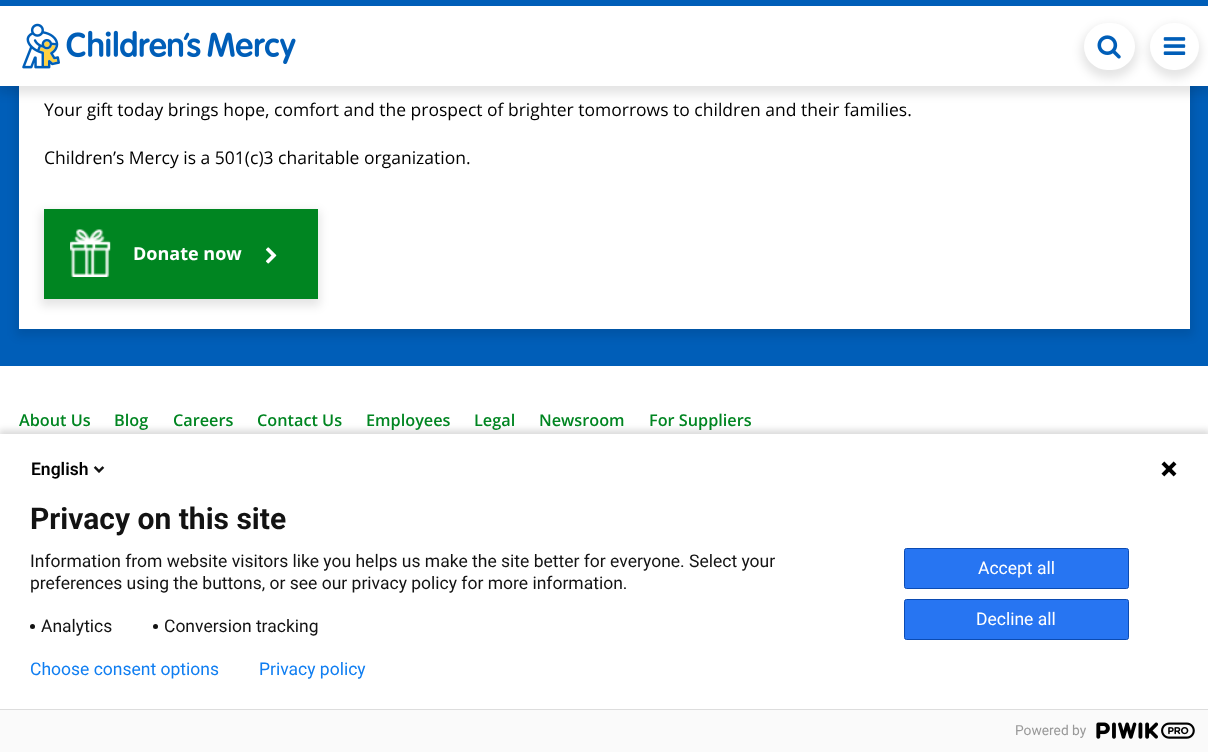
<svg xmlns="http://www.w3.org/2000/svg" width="1208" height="752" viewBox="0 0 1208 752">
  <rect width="100%" height="100%" fill="#005eb8"/>
  <path d="M16 21h1177v315H16z" fill="#0000001a" filter="blur(5px)"/>
  <path d="M19 86h1171v243H19z" fill="#fff"/>
  <path d="M-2 3h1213v91H-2z" fill="#0000001a" filter="blur(5px)"/>
  <path d="M0 6h1208v80H0z" fill="#fff"/>
  <path d="M0 0h1208v6H0z" fill="#005eb8"/>
  <image x="22" y="23" width="274" height="46" href="img/1.png"/>
  <rect x="1081" y="25" width="57" height="53" rx="26.5" fill="#0000001a" filter="blur(5px)"/>
  <rect x="1084" y="23" width="51" height="47" rx="23.5" fill="#fff"/>
  <image x="1097" y="35" width="24" height="24" href="img/2.png"/>
  <rect x="1148" y="25" width="53" height="53" rx="26.5" fill="#0000001a" filter="blur(5px)"/>
  <rect x="1150" y="23" width="49" height="47" rx="23.5" fill="#fff"/>
  <image x="1163" y="37" width="23" height="18" href="img/3.png"/>
  <path d="M41 211h279v95H41z" fill="#0000001a" filter="blur(5px)"/>
  <path d="M44 209h274v90H44z" fill="#008521"/>
  <image x="70" y="229" width="41" height="48" href="img/4.png"/>
  <image x="265" y="247" width="12" height="17" href="img/5.png"/>
  <path d="M0 366h1208v68H0z" fill="#fff"/>
  <path d="M-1 430h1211v321H-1z" fill="#00000024" filter="blur(3px)"/>
  <path d="M0 434h1208v275H0z" fill="#fff"/>
  <image x="93" y="466" width="12" height="7" href="img/6.png"/>
  <image x="1161" y="461" width="16" height="16" href="img/7.png"/>
  <circle cx="32.5" cy="626.5" r="2.5" fill="#131313"/>
  <circle cx="155.5" cy="626.5" r="2.5" fill="#131313"/>
  <rect x="904.5" y="548.5" width="224" height="40" rx="2" fill="#2775f2" stroke="#0b4bb3"/>
  <rect x="904.5" y="599.5" width="224" height="40" rx="2" fill="#2775f2" stroke="#0b4bb3"/>
  <path d="M0 710h1208v42H0z" fill="#fafafa"/>
  <path d="M0 709h1208v1H0z" fill="#ddd"/>
  <image x="1096" y="722" width="99" height="17" href="img/8.png"/>
  <g font-family="Open Sans" font-size="17.5" fill="#000">
    <text x="44" y="116">Your gift today brings hope, comfort and the prospect of brighter tomorrows to children and their families.</text>
    <text x="44" y="164">Children’s Mercy is a 501(c)3 charitable organization.</text>
  </g>
  <text x="133" y="260" font-family="Open Sans" font-size="18" font-weight="bold" fill="#fff">Donate now</text>
  <g font-family="Open Sans" font-size="16.25" font-weight="600" fill="#008521">
    <text x="19" y="426">About Us</text>
    <text x="114" y="426">Blog</text>
    <text x="173" y="426">Careers</text>
    <text x="257" y="426">Contact Us</text>
    <text x="366" y="426">Employees</text>
    <text x="474" y="426">Legal</text>
    <text x="539" y="426">Newsroom</text>
    <text x="649" y="426">For Suppliers</text>
  </g>
  <text x="31" y="475" font-family="Roboto" font-size="17.5" font-weight="600" fill="#000">English</text>
  <text x="30" y="529" font-family="Roboto" font-size="30" font-weight="bold" fill="#131313">Privacy on this site</text>
  <g font-family="Roboto" font-size="17.5" fill="#131313">
    <text x="30" y="567">Information from website visitors like you helps us make the site better for everyone. Select your</text>
    <text x="30" y="589">preferences using the buttons, or see our privacy policy for more information.</text>
    <text x="41" y="632">Analytics</text>
    <text x="164" y="632">Conversion tracking</text>
  </g>
  <g font-family="Roboto" font-size="17.5" fill="#fff">
    <text x="978" y="574">Accept all</text>
    <text x="976" y="625">Decline all</text>
  </g>
  <g font-family="Roboto" font-size="17.5" fill="#107ef1">
    <text x="30" y="675">Choose consent options</text>
    <text x="259" y="675">Privacy policy</text>
  </g>
  <text x="1015" y="735" font-family="Roboto" font-size="13.75" fill="#999">Powered by</text>
</svg>
